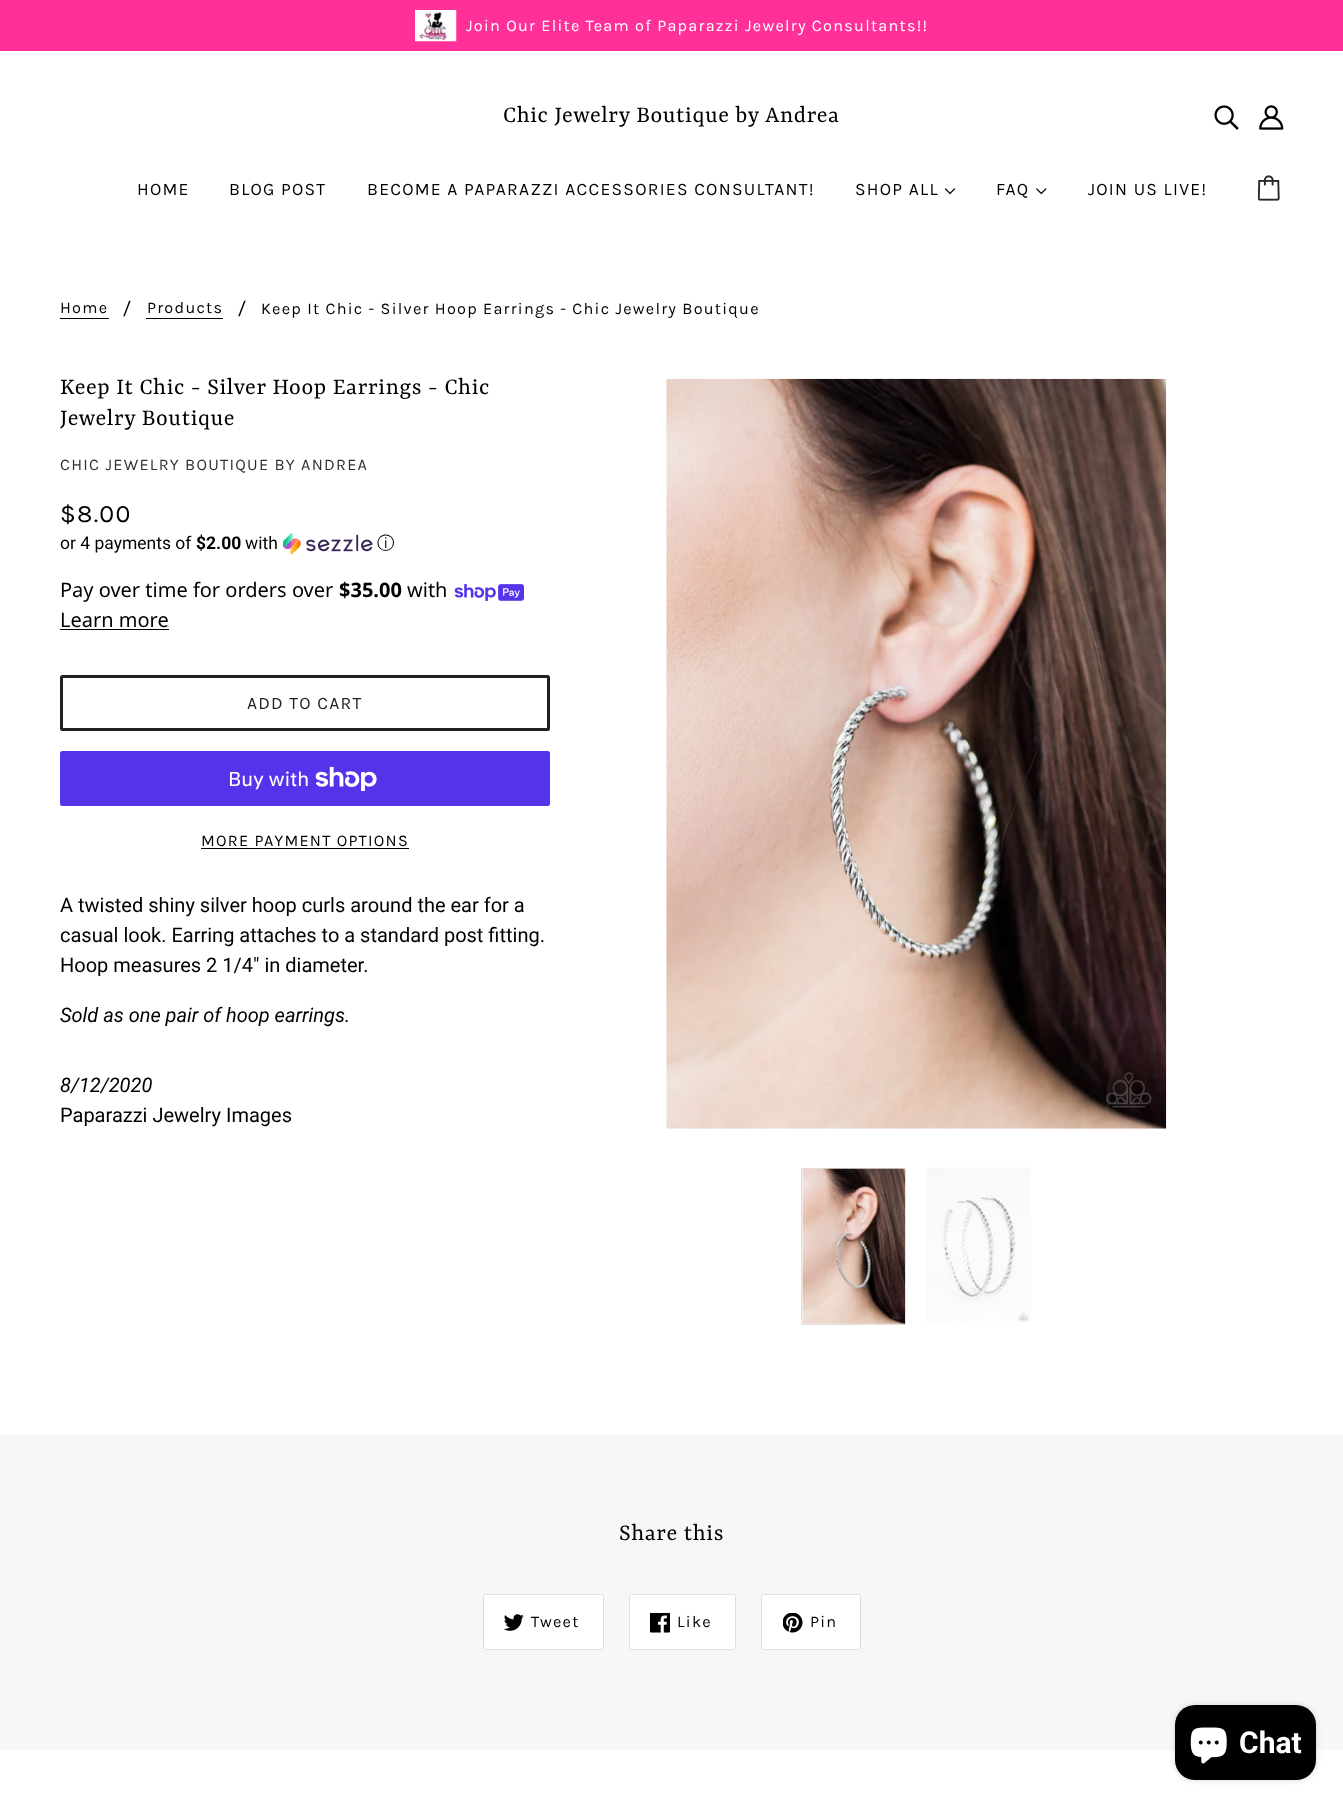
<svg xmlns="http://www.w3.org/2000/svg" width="1343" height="1806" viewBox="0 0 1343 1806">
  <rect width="100%" height="100%" fill="#fff"/>
  <path d="M0 0h1343v51H0z" fill="#ff3098"/>
  <image x="415" y="10" width="42" height="32" href="img/1.png"/>
  <image x="1214" y="105" width="25" height="25" href="img/2.png"/>
  <image x="1259" y="105" width="25" height="25" href="img/3.png"/>
  <image x="944" y="188" width="12" height="7" href="img/4.png"/>
  <image x="1036" y="188" width="11" height="7" href="img/5.png"/>
  <image x="1258" y="175" width="22" height="26" href="img/6.png"/>
  <path d="M60 318h49v1H60z" fill="#000"/>
  <path d="M146 318h77v1H146z" fill="#000"/>
  <image x="666" y="378" width="501" height="751" href="img/7.png"/>
  <path d="M801.5 1168.5h104v156H801.5z" fill="none" stroke="#e0e0e0"/>
  <image x="802" y="1168" width="103" height="156" href="img/8.png"/>
  <image x="926" y="1167" width="105" height="155" href="img/9.png"/>
  <image x="283" y="533" width="90" height="22" href="img/10.png"/>
  <image x="454" y="584" width="70" height="17" href="img/11.png"/>
  <path d="M60 629h109v1H60z" fill="#000"/>
  <rect x="61.5" y="676.5" width="487" height="53" rx="1" fill="none" stroke="#212121" stroke-width="3"/>
  <rect x="60" y="751" width="490" height="55" rx="2.5" fill="#5433eb"/>
  <image x="315" y="766" width="62" height="25" href="img/12.png"/>
  <path d="M201 848h208v1H201z" fill="#000"/>
  <path d="M0 1435h1343v315H0z" fill="#f7f7f7"/>
  <rect x="483.5" y="1594.5" width="120" height="55" rx="2" fill="#fff" stroke="#e0e0e0"/>
  <image x="504" y="1614" width="20" height="17" href="img/13.png"/>
  <rect x="629.5" y="1594.5" width="106" height="55" rx="2" fill="#fff" stroke="#e0e0e0"/>
  <image x="650" y="1613" width="20" height="20" href="img/14.png"/>
  <rect x="761.5" y="1594.5" width="99" height="55" rx="2" fill="#fff" stroke="#e0e0e0"/>
  <image x="783" y="1613" width="20" height="20" href="img/15.png"/>
  <rect x="1175" y="1705" width="141" height="75" rx="20" fill="#00000026" filter="blur(3px)"/>
  <rect x="1175" y="1705" width="141" height="75" rx="20" fill="#000"/>
  <image x="1190" y="1727" width="37" height="37" href="img/16.png"/>
  <text x="466" y="31" font-family="Karla" font-size="16.25" letter-spacing="1.25" fill="#fff">Join Our Elite Team of Paparazzi Jewelry Consultants!!</text>
  <text x="503" y="122" font-family="Rasa" font-size="25" letter-spacing="0.6" fill="#000">Chic Jewelry Boutique by Andrea</text>
  <g font-family="Karla" font-size="17.5" letter-spacing="1.25" fill="#000">
    <text x="137" y="195">HOME</text>
    <text x="229" y="195">BLOG POST</text>
    <text x="367" y="195">BECOME A PAPARAZZI ACCESSORIES CONSULTANT!</text>
    <text x="855" y="195">SHOP ALL</text>
    <text x="996" y="195">FAQ</text>
    <text x="1088" y="195">JOIN US LIVE!</text>
  </g>
  <text x="60" y="313" font-family="Karla" font-size="16.25" letter-spacing="1.25" fill="#000">Home</text>
  <text x="123" y="315" font-family="Roboto" font-size="20" fill="#000">/</text>
  <text x="147" y="313" font-family="Karla" font-size="16.25" letter-spacing="1.25" fill="#000">Products</text>
  <text x="238" y="315" font-family="Roboto" font-size="20" fill="#000">/</text>
  <text x="261" y="314" font-family="Karla" font-size="16.25" letter-spacing="1.25" fill="#000">Keep It Chic - Silver Hoop Earrings - Chic Jewelry Boutique</text>
  <g font-family="Rasa" font-size="25" letter-spacing="0.6" fill="#000">
    <text x="60" y="394">Keep It Chic - Silver Hoop Earrings - Chic</text>
    <text x="60" y="425">Jewelry Boutique</text>
  </g>
  <text x="60" y="470" font-family="Karla" font-size="16.25" letter-spacing="1.25" fill="#303030">CHIC JEWELRY BOUTIQUE BY ANDREA</text>
  <text x="60" y="522" font-family="Karla" font-size="25" letter-spacing="1.25" fill="#000">$8.00</text>
  <text x="60" y="549" font-family="Roboto" font-size="17.5" fill="#000">or 4 payments of</text>
  <text x="196" y="549" font-family="Roboto" font-size="17.5" font-weight="bold" fill="#000">$2.00</text>
  <text x="245" y="549" font-family="Roboto" font-size="17.5" fill="#000">with</text>
  <text x="377" y="549" font-family="WenQuanYi Zen Hei" font-size="17.5" font-weight="500" fill="#000">ⓘ</text>
  <text x="60" y="597" font-family="Noto Sans" font-size="20" fill="#000">Pay over time for orders over</text>
  <text x="339" y="597" font-family="Noto Sans" font-size="20" font-weight="bold" fill="#000">$35.00</text>
  <g font-family="Noto Sans" font-size="20" fill="#000">
    <text x="407" y="597">with</text>
    <text x="60" y="627">Learn more</text>
  </g>
  <text x="247" y="709" font-family="Karla" font-size="17.5" letter-spacing="1.25" fill="#212121">ADD TO CART</text>
  <text x="228" y="786" font-family="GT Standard" font-size="20" fill="#fff">Buy with</text>
  <text x="201" y="846" font-family="Karla" font-size="16.25" letter-spacing="1.25" fill="#000">MORE PAYMENT OPTIONS</text>
  <g font-family="Roboto" font-size="20" fill="#000">
    <text x="60" y="912">A twisted shiny silver hoop curls around the ear for a</text>
    <text x="60" y="942">casual look. Earring attaches to a standard post fitting.</text>
    <text x="60" y="972">Hoop measures 2 1/4" in diameter.</text>
  </g>
  <g font-family="Roboto" font-size="20" font-style="italic" fill="#000">
    <text x="60" y="1022">Sold as one pair of hoop earrings.</text>
    <text x="60" y="1092">8/12/2020</text>
  </g>
  <text x="60" y="1122" font-family="Roboto" font-size="20" fill="#000">Paparazzi Jewelry Images</text>
  <text x="619" y="1540" font-family="Rasa" font-size="25" letter-spacing="0.6" fill="#000">Share this</text>
  <g font-family="Karla" font-size="16.25" letter-spacing="1.25" fill="#000">
    <text x="531" y="1627">Tweet</text>
    <text x="677" y="1627">Like</text>
    <text x="810" y="1627">Pin</text>
  </g>
  <text x="1239" y="1753" font-family="Roboto" font-size="30" font-weight="bold" fill="#fff">Chat</text>
</svg>
